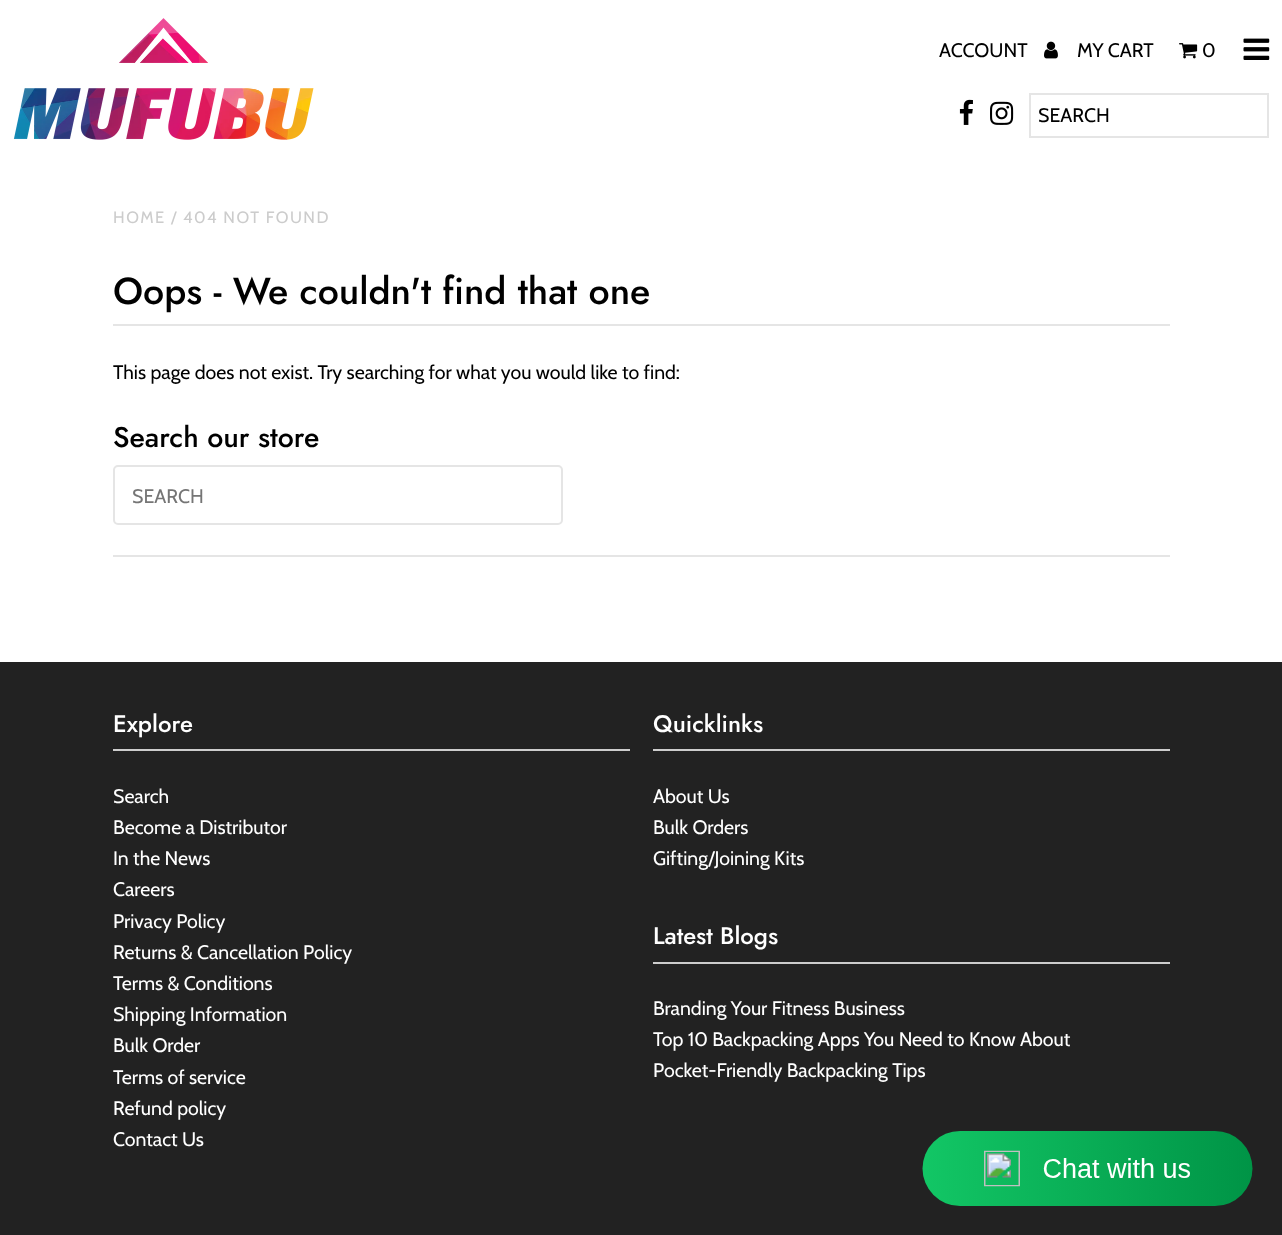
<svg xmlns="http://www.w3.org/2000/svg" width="1282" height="1235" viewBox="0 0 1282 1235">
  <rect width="100%" height="100%" fill="#fff"/>
  <image x="13" y="18" width="301" height="122" href="img/1.png"/>
  <image x="1044" y="41" width="14" height="18" href="img/2.png"/>
  <image x="1179" y="43" width="19" height="16" href="img/3.png"/>
  <image x="1243" y="38" width="27" height="22" href="img/4.png"/>
  <image x="959" y="99" width="14" height="26" href="img/5.png"/>
  <image x="990" y="101" width="24" height="24" href="img/6.png"/>
  <path d="M1030 94h238v43H1030z" fill="none" stroke="#e5e5e5" stroke-width="2"/>
  <path d="M113 324h1057v2H113z" fill="#e5e5e5"/>
  <path d="M113 555h1057v2H113z" fill="#e5e5e5"/>
  <rect x="114" y="466" width="448" height="58" rx="4" fill="none" stroke="#e5e5e5" stroke-width="2"/>
  <path d="M0 662h1282v573H0z" fill="#222"/>
  <path d="M113 749h517v2H113z" fill="#cdcdcd"/>
  <path d="M653 749h517v2H653z" fill="#cdcdcd"/>
  <path d="M653 962h517v2H653z" fill="#cdcdcd"/>
  <image x="922" y="1131" width="331" height="75" href="img/7.png"/>
  <g font-family="Cabin" font-size="19.5" fill="#000">
    <text x="939" y="57">ACCOUNT</text>
    <text x="1077" y="57">MY CART</text>
    <text x="1202" y="57">0</text>
    <text x="1038" y="122">SEARCH</text>
  </g>
  <text x="113" y="223" font-family="Cabin" font-size="16.5" letter-spacing="1.5" fill="#ccc">HOME / 404 NOT FOUND</text>
  <text x="113" y="304" font-family="Jost" font-size="37.5" font-weight="500" fill="#000">Oops - We couldn't find that one</text>
  <text x="113" y="379" font-family="Cabin" font-size="19.5" fill="#000">This page does not exist. Try searching for what you would like to find:</text>
  <text x="113" y="447" font-family="Jost" font-size="28.5" font-weight="500" fill="#000">Search our store</text>
  <text x="132" y="503" font-family="Cabin" font-size="19.5" fill="#757575">SEARCH</text>
  <text x="113" y="732" font-family="Jost" font-size="24" font-weight="500" fill="#fff">Explore</text>
  <g font-family="Cabin" font-size="19.5" fill="#fff">
    <text x="113" y="803">Search</text>
    <text x="113" y="834">Become a Distributor</text>
    <text x="113" y="865">In the News</text>
    <text x="113" y="896">Careers</text>
    <text x="113" y="928">Privacy Policy</text>
    <text x="113" y="959">Returns &amp; Cancellation Policy</text>
    <text x="113" y="990">Terms &amp; Conditions</text>
    <text x="113" y="1021">Shipping Information</text>
    <text x="113" y="1052">Bulk Order</text>
    <text x="113" y="1084">Terms of service</text>
    <text x="113" y="1115">Refund policy</text>
    <text x="113" y="1146">Contact Us</text>
  </g>
  <text x="653" y="732" font-family="Jost" font-size="24" font-weight="500" fill="#fff">Quicklinks</text>
  <g font-family="Cabin" font-size="19.5" fill="#fff">
    <text x="653" y="803">About Us</text>
    <text x="653" y="834">Bulk Orders</text>
    <text x="653" y="865">Gifting/Joining Kits</text>
  </g>
  <text x="653" y="944" font-family="Jost" font-size="24" font-weight="500" fill="#fff">Latest Blogs</text>
  <g font-family="Cabin" font-size="19.5" fill="#fff">
    <text x="653" y="1015">Branding Your Fitness Business</text>
    <text x="653" y="1046">Top 10 Backpacking Apps You Need to Know About</text>
    <text x="653" y="1077">Pocket-Friendly Backpacking Tips</text>
  </g>
</svg>
